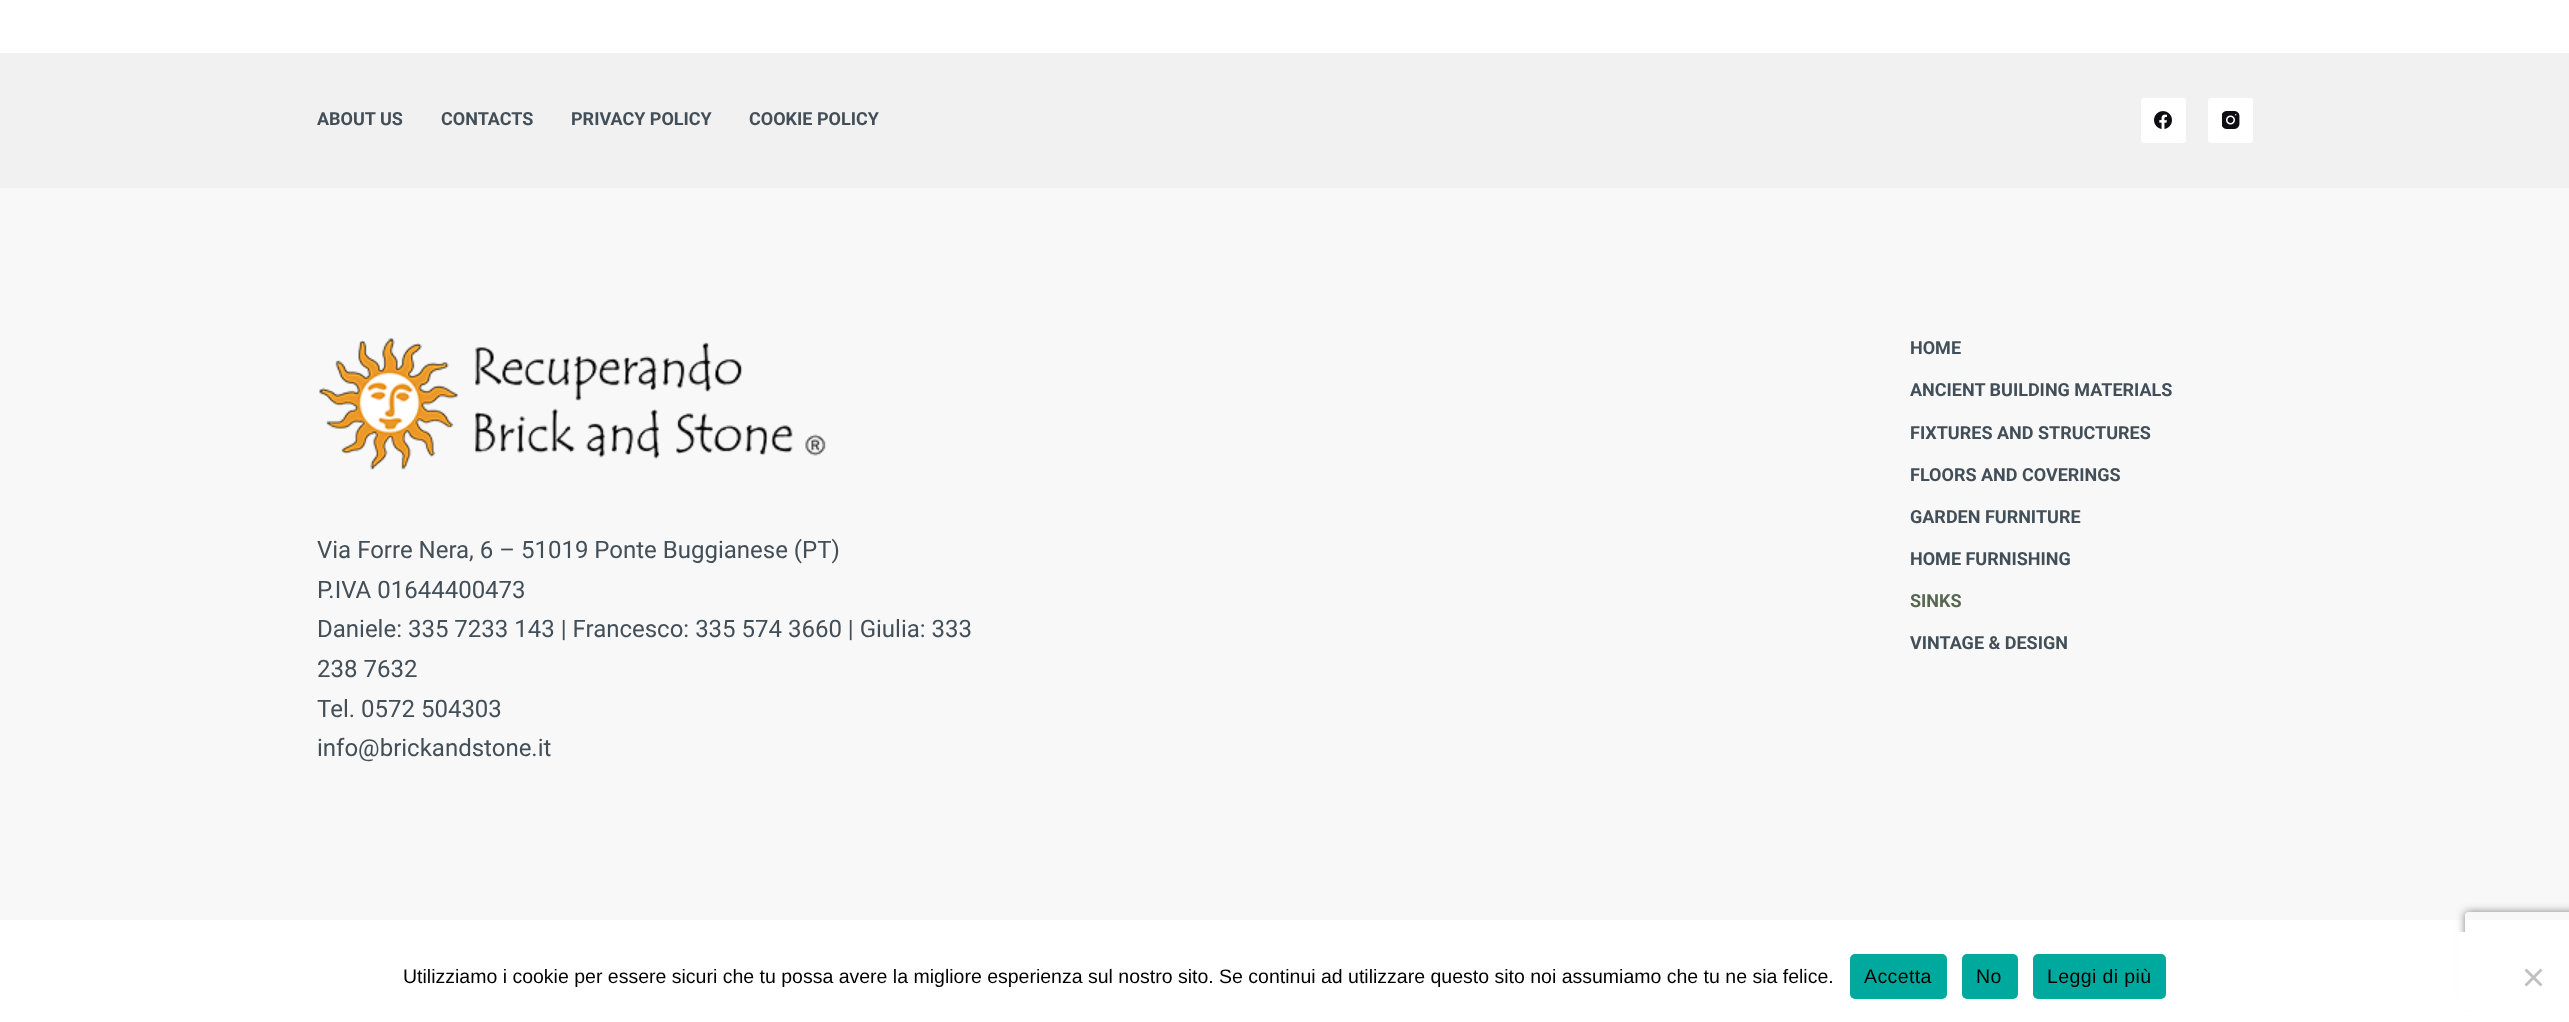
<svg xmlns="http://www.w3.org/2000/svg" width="2569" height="1022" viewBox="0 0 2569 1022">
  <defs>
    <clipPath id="clip1"><path d="M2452 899H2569V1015H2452ZM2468 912H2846C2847.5 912 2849 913.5 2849 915V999C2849 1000.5 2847.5 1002 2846 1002H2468C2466.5 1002 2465 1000.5 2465 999V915C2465 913.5 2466.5 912 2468 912Z" clip-rule="evenodd"/></clipPath>
  </defs>
  <rect width="100%" height="100%" fill="#fff"/>
  <path d="M0 188h2569v732H0z" fill="#f8f8f8"/>
  <path d="M0 53h2569v135H0z" fill="#f1f1f1"/>
  <rect x="2141" y="98" width="45" height="45" rx="3" fill="#fff"/>
  <image x="2154" y="111" width="18" height="18" href="img/1.png"/>
  <rect x="2208" y="98" width="45" height="45" rx="3" fill="#fff"/>
  <image x="2222" y="111" width="18" height="18" href="img/2.png"/>
  <image x="319" y="338" width="507" height="132" href="img/3.png"/>
  <g clip-path="url(#clip1)">
    <rect x="2465" y="912" width="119" height="90" rx="3" fill="#808080" filter="blur(4px)"/>
  </g>
  <path d="M2457 932h112v78H2457z" fill="#fff"/>
  <rect x="1850" y="954" width="97" height="45" rx="5" fill="#00a99d"/>
  <rect x="1962" y="954" width="56" height="45" rx="5" fill="#00a99d"/>
  <rect x="2033" y="954" width="133" height="45" rx="5" fill="#00a99d"/>
  <path d="M2540.5 968.5L2542.5 970.5L2526.5 986.5L2524.5 984.5Z" fill="#c0c0c0"/>
  <path d="M2524.5 970.5L2526.5 968.5L2542.5 984.5L2540.5 986.5Z" fill="#c0c0c0"/>
  <g font-family="Roboto" font-size="18" font-weight="bold" fill="#434f58">
    <text x="317" y="125">ABOUT US</text>
    <text x="441" y="125">CONTACTS</text>
    <text x="571" y="125">PRIVACY POLICY</text>
    <text x="749" y="125">COOKIE POLICY</text>
  </g>
  <g font-family="Roboto" font-size="24" fill="#434f58">
    <text x="317" y="558">Via Forre Nera, 6 – 51019 Ponte Buggianese (PT)</text>
    <text x="317" y="598">P.IVA 01644400473</text>
    <text x="317" y="637">Daniele: 335 7233 143 | Francesco: 335 574 3660 | Giulia: 333</text>
    <text x="317" y="677">238 7632</text>
    <text x="317" y="717">Tel. 0572 504303</text>
    <text x="317" y="756">info@brickandstone.it</text>
  </g>
  <g font-family="Roboto" font-size="18" font-weight="bold" fill="#434f58">
    <text x="1910" y="354">HOME</text>
    <text x="1910" y="396">ANCIENT BUILDING MATERIALS</text>
    <text x="1910" y="439">FIXTURES AND STRUCTURES</text>
    <text x="1910" y="481">FLOORS AND COVERINGS</text>
    <text x="1910" y="523">GARDEN FURNITURE</text>
    <text x="1910" y="565">HOME FURNISHING</text>
  </g>
  <text x="1910" y="607" font-family="Roboto" font-size="18" font-weight="bold" fill="#586750">SINKS</text>
  <text x="1910" y="649" font-family="Roboto" font-size="18" font-weight="bold" fill="#434f58">VINTAGE &amp; DESIGN</text>
  <text x="403" y="983" font-family="Liberation Sans" font-size="19.5" fill="#000">Utilizziamo i cookie per essere sicuri che tu possa avere la migliore esperienza sul nostro sito. Se continui ad utilizzare questo sito noi assumiamo che tu ne sia felice.</text>
  <g font-family="Liberation Sans" font-size="19.5" letter-spacing="0.4" fill="#000">
    <text x="1864" y="983">Accetta</text>
    <text x="1976" y="983">No</text>
    <text x="2047" y="983">Leggi di più</text>
  </g>
</svg>
